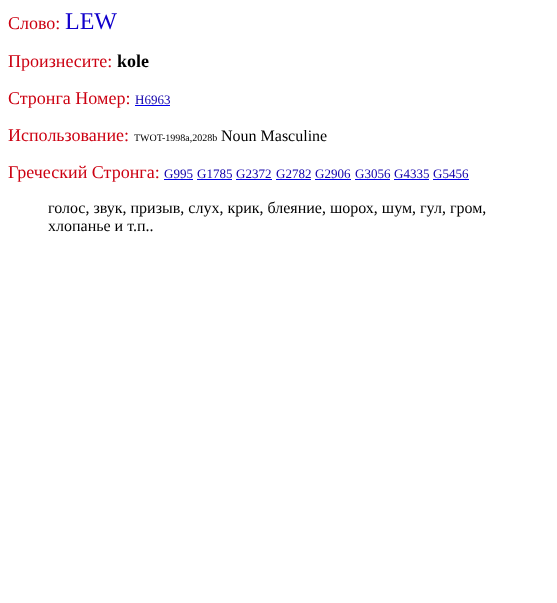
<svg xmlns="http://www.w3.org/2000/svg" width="557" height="603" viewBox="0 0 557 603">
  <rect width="100%" height="100%" fill="#fff"/>
  <path d="M135 105h35v1H135z" fill="#00e"/>
  <path d="M164 179h29v1H164z" fill="#00e"/>
  <path d="M197 179h35v1H197z" fill="#00e"/>
  <path d="M236 179h36v1H236z" fill="#00e"/>
  <path d="M276 179h35v1H276z" fill="#00e"/>
  <path d="M315 179h36v1H315z" fill="#00e"/>
  <path d="M355 179h35v1H355z" fill="#00e"/>
  <path d="M394 179h35v1H394z" fill="#00e"/>
  <path d="M433 179h36v1H433z" fill="#00e"/>
  <text x="8" y="29" font-family="Liberation Serif" font-size="18" fill="#c01">Слово:</text>
  <text x="65" y="29" font-family="Liberation Serif" font-size="24" fill="#10c">LEW</text>
  <text x="8" y="67" font-family="Liberation Serif" font-size="18" fill="#c01">Произнесите:</text>
  <text x="117" y="67" font-family="Liberation Serif" font-size="18" font-weight="bold" fill="#000">kole</text>
  <text x="8" y="104" font-family="Liberation Serif" font-size="18" fill="#c01">Стронга Номер:</text>
  <text x="135" y="104" font-family="Liberation Serif" font-size="13" fill="#10a">H6963</text>
  <text x="8" y="141" font-family="Liberation Serif" font-size="18" fill="#c01">Использование:</text>
  <text x="134" y="141" font-family="Liberation Serif" font-size="10" fill="#000">TWOT-1998a,2028b</text>
  <text x="221" y="141" font-family="Liberation Serif" font-size="16" fill="#000">Noun Masculine</text>
  <text x="8" y="178" font-family="Liberation Serif" font-size="18" fill="#c01">Греческий Стронга:</text>
  <g font-family="Liberation Serif" font-size="13" fill="#10a">
    <text x="164" y="178">G995</text>
    <text x="197" y="178">G1785</text>
    <text x="236" y="178">G2372</text>
    <text x="276" y="178">G2782</text>
    <text x="315" y="178">G2906</text>
    <text x="355" y="178">G3056</text>
    <text x="394" y="178">G4335</text>
    <text x="433" y="178">G5456</text>
  </g>
  <g font-family="Liberation Serif" font-size="16" fill="#000">
    <text x="48" y="213">голос, звук, призыв, слух, крик, блеяние, шорох, шум, гул, гром,</text>
    <text x="48" y="231">хлопанье и т.п..</text>
  </g>
</svg>
